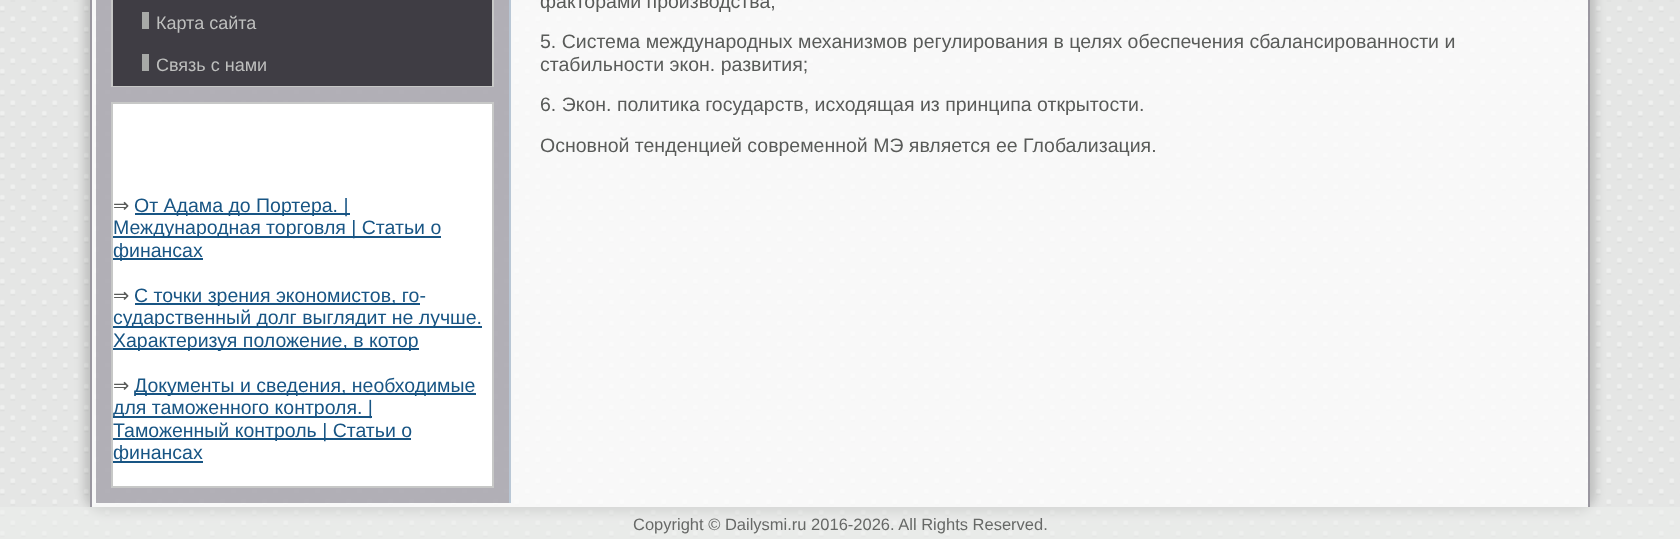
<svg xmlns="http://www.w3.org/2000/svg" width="1680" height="539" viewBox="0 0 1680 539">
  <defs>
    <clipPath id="clip1"><path d="M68 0H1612V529H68ZM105-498H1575C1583.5-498 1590-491.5 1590-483V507H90V-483C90-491.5 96.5-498 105-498Z" clip-rule="evenodd"/></clipPath>
  </defs>
  <rect width="100%" height="100%" fill="#eeefee"/>
  <image x="0" y="0" width="1680" height="539" href="img/1.png"/>
  <g clip-path="url(#clip1)">
    <rect x="84" y="-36" width="1512" height="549" rx="21" fill="#00000029" filter="blur(5px)"/>
  </g>
  <path d="M90 0h1500v507H90z" fill="#fcfcfccc"/>
  <path d="M105-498H1575C1583-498 1590-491 1590-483V507H90V-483C90-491 97-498 105-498ZM105-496H1575C1582-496 1588-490 1588-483V507H92V-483C92-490 98-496 105-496Z" fill="#827e8acc" fill-rule="evenodd"/>
  <path d="M96 0h413v503H96z" fill="#827e8a99"/>
  <path d="M509 0h2v503H509z" fill="#b9c7d5"/>
  <path d="M112 -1h381v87H112z" fill="none" stroke="#c7c8c7" stroke-width="2"/>
  <path d="M113 0h379v86H113z" fill="#3f3d44"/>
  <path d="M142 12h7v17H142z" fill="#a7a9a7"/>
  <path d="M142 54h7v17H142z" fill="#a7a9a7"/>
  <path d="M112 103h381v384H112z" fill="#fff" stroke="#c7c8c7" stroke-width="2"/>
  <path d="M135 213h215v2H135z" fill="#185584"/>
  <path d="M113 236h328v2H113z" fill="#185584"/>
  <path d="M113 258h90v2H113z" fill="#185584"/>
  <path d="M135 303h285v2H135z" fill="#185584"/>
  <path d="M113 326h369v2H113z" fill="#185584"/>
  <path d="M113 348h306v2H113z" fill="#185584"/>
  <path d="M135 393h341v2H135z" fill="#185584"/>
  <path d="M113 416h259v2H113z" fill="#185584"/>
  <path d="M113 438h298v2H113z" fill="#185584"/>
  <path d="M113 461h90v2H113z" fill="#185584"/>
  <path d="M0 507h1680v32H0z" fill="#eeefee80"/>
  <g font-family="Liberation Sans" font-size="18" fill="#bebfbe">
    <text x="156" y="29">Карта сайта</text>
    <text x="156" y="71">Связь с нами</text>
  </g>
  <text x="113" y="212" font-family="DejaVu Sans" font-size="19.5" fill="#595b59">⇒</text>
  <g font-family="Liberation Sans" font-size="19.5" fill="#185584">
    <text x="134" y="212">От Адама до Портера. |</text>
    <text x="113" y="234">Международная торговля | Статьи о</text>
    <text x="113" y="257">финансах</text>
  </g>
  <text x="113" y="302" font-family="DejaVu Sans" font-size="19.5" fill="#595b59">⇒</text>
  <g font-family="Liberation Sans" font-size="19.5" fill="#185584">
    <text x="134" y="302">С точки зрения экономистов, го-</text>
    <text x="113" y="324">сударственный долг выглядит не лучше.</text>
    <text x="113" y="347">Характеризуя положение, в котор</text>
  </g>
  <text x="113" y="392" font-family="DejaVu Sans" font-size="19.5" fill="#595b59">⇒</text>
  <g font-family="Liberation Sans" font-size="19.5" fill="#185584">
    <text x="134" y="392">Документы и сведения, необходимые</text>
    <text x="113" y="414">для таможенного контроля. |</text>
    <text x="113" y="437">Таможенный контроль | Статьи о</text>
    <text x="113" y="459">финансах</text>
  </g>
  <g font-family="Liberation Sans" font-size="19.5" fill="#595b59">
    <text x="540" y="8">факторами производства;</text>
    <text x="540" y="48">5. Система международных механизмов регулирования в целях обеспечения сбалансированности и</text>
    <text x="540" y="71">стабильности экон. развития;</text>
    <text x="540" y="111">6. Экон. политика государств, исходящая из принципа открытости.</text>
    <text x="540" y="152">Основной тенденцией современной МЭ является ее Глобализация.</text>
  </g>
  <text x="633" y="530" font-family="Liberation Sans" font-size="16.5" fill="#676967">Copyright © Dailysmi.ru 2016-2026. All Rights Reserved.</text>
</svg>
